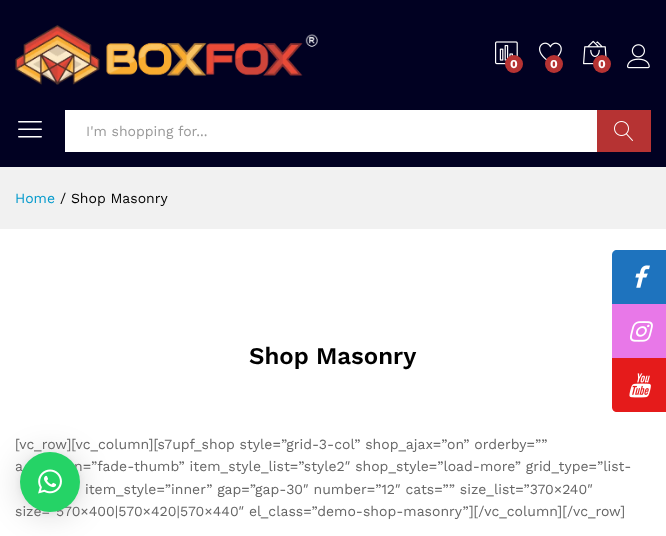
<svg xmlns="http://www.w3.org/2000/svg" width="666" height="536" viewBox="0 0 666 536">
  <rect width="100%" height="100%" fill="#fff"/>
  <path d="M0 0h666v167H0z" fill="#010122"/>
  <image x="15" y="25" width="303" height="60" href="img/1.png"/>
  <image x="495" y="41" width="23" height="24" href="img/2.png"/>
  <circle cx="514" cy="64" r="9" fill="#b63333"/>
  <image x="539" y="42" width="23" height="18" href="img/3.png"/>
  <circle cx="554" cy="64" r="9" fill="#b63333"/>
  <image x="583" y="40" width="24" height="25" href="img/4.png"/>
  <circle cx="602" cy="64" r="9" fill="#b63333"/>
  <image x="627" y="44" width="23" height="25" href="img/5.png"/>
  <image x="18" y="121" width="24" height="17" href="img/6.png"/>
  <path d="M65 110h532v42H65z" fill="#fff"/>
  <path d="M597 110h54v42H597z" fill="#b63333"/>
  <image x="614" y="121" width="19" height="20" href="img/7.png"/>
  <path d="M0 167h666v62H0z" fill="#f1f1f1"/>
  <path d="M617 250H666V304H612V255C612 252 614 250 617 250Z" fill="#1e73be"/>
  <image x="635" y="265" width="15" height="23" href="img/8.png"/>
  <path d="M612 304h54v54H612z" fill="#e878e8"/>
  <image x="630" y="321" width="23" height="21" href="img/9.png"/>
  <path d="M612 358H666V412H617C614 412 612 410 612 407Z" fill="#e51b1b"/>
  <image x="629" y="373" width="22" height="25" href="img/10.png"/>
  <rect x="20" y="454" width="60" height="60" rx="30" fill="#00000029" filter="blur(16px)"/>
  <rect x="20" y="453" width="60" height="60" rx="30" fill="#0000000f" filter="blur(3px)"/>
  <g font-family="Work Sans" font-size="12" font-weight="bold" fill="#fff">
    <text x="510" y="68">0</text>
    <text x="550" y="68">0</text>
    <text x="598" y="68">0</text>
  </g>
  <text x="86" y="136" font-family="Work Sans" font-size="14" fill="#999">I'm shopping for...</text>
  <text x="15" y="203" font-family="Work Sans" font-size="14" fill="#09c">Home</text>
  <text x="60" y="203" font-family="Work Sans" font-size="14" fill="#000">/ Shop Masonry</text>
  <text x="249" y="364" font-family="Work Sans" font-size="24" font-weight="600" fill="#000">Shop Masonry</text>
  <g font-family="Work Sans" font-size="14" fill="#666">
    <text x="15" y="449">[vc_row][vc_column][s7upf_shop style=”grid-3-col” shop_ajax=”on” orderby=””</text>
    <text x="15" y="471">a</text>
    <text x="74" y="471">n=”fade-thumb” item_style_list=”style2″ shop_style=”load-more” grid_type=”list-</text>
    <text x="85" y="494">item_style=”inner” gap=”gap-30″ number=”12″ cats=”” size_list=”370×240″</text>
    <text x="15" y="516">size=”570×400|570×420|570×440″ el_class=”demo-shop-masonry”][/vc_column][/vc_row]</text>
  </g>
  <circle cx="50" cy="482" r="30" fill="#25d366"/>
  <image x="38" y="469" width="24" height="25" href="img/11.png"/>
</svg>
